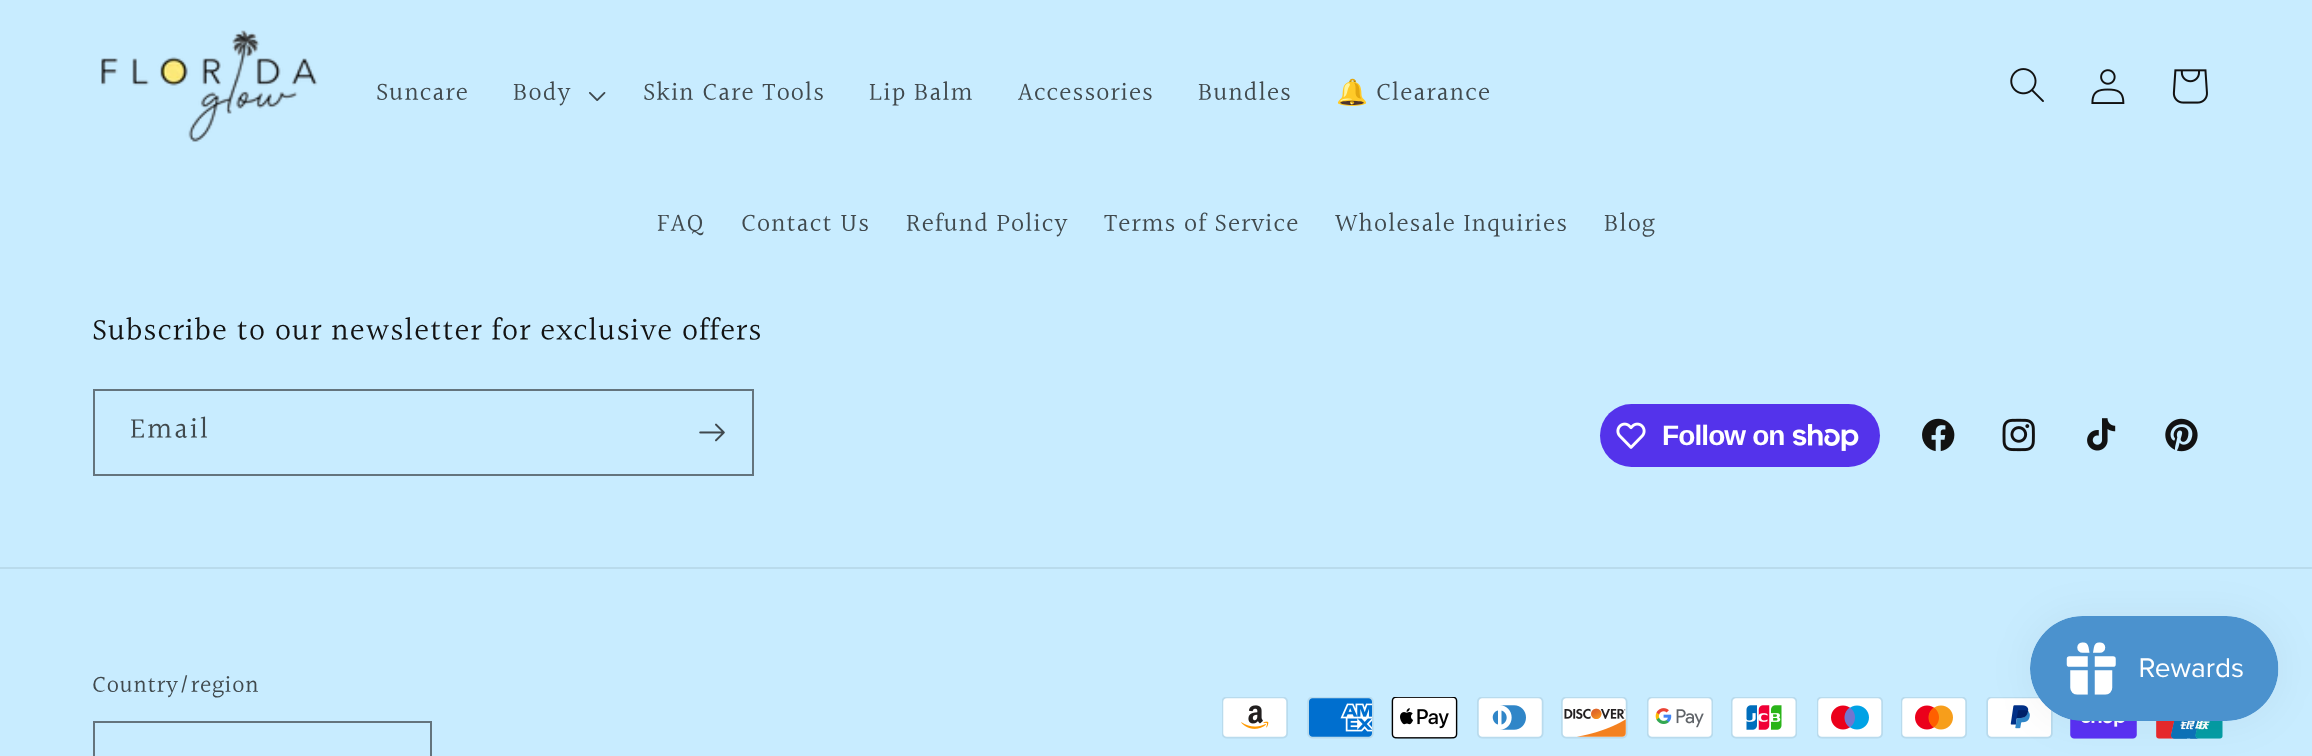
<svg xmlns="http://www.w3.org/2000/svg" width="2312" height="756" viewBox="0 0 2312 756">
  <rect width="100%" height="100%" fill="#c8ecff"/>
  <image x="101" y="30" width="217" height="112" href="img/1.png"/>
  <image x="589" y="92" width="17" height="9" href="img/2.png"/>
  <image x="2010" y="68" width="34" height="34" href="img/3.png"/>
  <image x="2091" y="69" width="34" height="35" href="img/4.png"/>
  <image x="2172" y="69" width="36" height="35" href="img/5.png"/>
  <path d="M94 390h659v85H94z" fill="none" stroke="#64747d" stroke-width="2"/>
  <image x="699" y="423" width="26" height="19" href="img/6.png"/>
  <rect x="1600" y="404" width="280" height="63" rx="31.5" fill="#5433eb"/>
  <image x="1616" y="422" width="30" height="27" href="img/7.png"/>
  <image x="1792" y="424" width="67" height="27" href="img/8.png"/>
  <image x="1922" y="418" width="33" height="34" href="img/9.png"/>
  <image x="2002" y="418" width="33" height="34" href="img/10.png"/>
  <image x="2087" y="418" width="29" height="33" href="img/11.png"/>
  <image x="2165" y="418" width="33" height="34" href="img/12.png"/>
  <path d="M0 567h2312v2H0z" fill="#b9dbec"/>
  <path d="M94 722h337v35H94z" fill="none" stroke="#64747d" stroke-width="2"/>
  <image x="1222" y="697" width="66" height="42" href="img/13.png"/>
  <image x="1307" y="697" width="67" height="42" href="img/14.png"/>
  <image x="1391" y="697" width="67" height="42" href="img/15.png"/>
  <image x="1477" y="697" width="67" height="42" href="img/16.png"/>
  <image x="1561" y="697" width="67" height="42" href="img/17.png"/>
  <image x="1647" y="697" width="66" height="42" href="img/18.png"/>
  <image x="1731" y="697" width="66" height="42" href="img/19.png"/>
  <image x="1817" y="697" width="66" height="42" href="img/20.png"/>
  <image x="1901" y="697" width="66" height="42" href="img/21.png"/>
  <image x="1986" y="697" width="67" height="42" href="img/22.png"/>
  <image x="2070" y="719" width="67" height="20" href="img/23.png"/>
  <image x="2156" y="721" width="67" height="18" href="img/24.png"/>
  <rect x="2030" y="616" width="249" height="105" rx="52.5" fill="#0000000d" filter="blur(22px)"/>
  <image x="2030" y="616" width="249" height="105" href="img/25.png"/>
  <g font-family="Halant" font-size="25.75" letter-spacing="1.1" fill="#40494d">
    <text x="376" y="101">Suncare</text>
    <text x="513" y="101">Body</text>
    <text x="643" y="101">Skin Care Tools</text>
    <text x="869" y="101">Lip Balm</text>
    <text x="1018" y="101">Accessories</text>
    <text x="1198" y="101">Bundles</text>
  </g>
  <text x="1336" y="101" font-family="Noto Color Emoji" font-size="25.75" letter-spacing="1.1" fill="#40494d">🔔</text>
  <g font-family="Halant" font-size="25.75" letter-spacing="1.1" fill="#40494d">
    <text x="1376" y="101">Clearance</text>
    <text x="657" y="232">FAQ</text>
    <text x="741" y="232">Contact Us</text>
    <text x="906" y="232">Refund Policy</text>
    <text x="1104" y="232">Terms of Service</text>
    <text x="1335" y="232">Wholesale Inquiries</text>
    <text x="1604" y="232">Blog</text>
  </g>
  <text x="92" y="341" font-family="Halant" font-size="31.5" letter-spacing="1.05" fill="#121212">Subscribe to our newsletter for exclusive offers</text>
  <text x="130" y="439" font-family="Halant" font-size="29.5" letter-spacing="2" fill="#40494d">Email</text>
  <text x="1662" y="445" font-family="Liberation Sans" font-size="28" font-weight="bold" letter-spacing="-0.9" fill="#fff">Follow on</text>
  <text x="92" y="693" font-family="Halant" font-size="24" letter-spacing="0.75" fill="#40494d">Country/region</text>
</svg>
